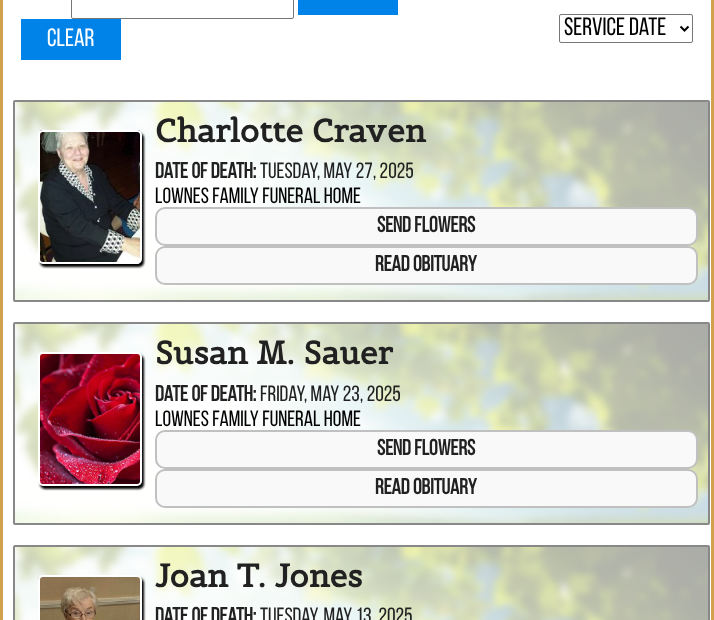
<svg xmlns="http://www.w3.org/2000/svg" width="714" height="620" viewBox="0 0 714 620">
  <rect width="100%" height="100%" fill="#fff"/>
  <path d="M711 0h3v620H711z" fill="#d1a14d"/>
  <path d="M0 0h3v620H0z" fill="#d1a14d"/>
  <rect x="71.5" y="-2.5" width="222" height="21" rx="1.5" fill="none" stroke="#767676"/>
  <path d="M298 0h100v15H298z" fill="#0083e8"/>
  <path d="M21 19h100v41H21z" fill="#0083e8"/>
  <rect x="559.5" y="14.5" width="133" height="28" rx="1.5" fill="none" stroke="#767676"/>
  <path d="M680.5 26.5L684.5 30.5L688.5 26.5" fill="none" stroke="#000" stroke-width="2"/>
  <rect x="14" y="101" width="695" height="200" rx="1" fill="none" stroke="#888" stroke-width="2"/>
  <image x="15" y="102" width="693" height="198" href="img/1.png"/>
  <rect x="40" y="133" width="104" height="134" rx="5" fill="#000" filter="blur(1px)"/>
  <image x="40" y="130" width="100" height="134" href="img/2.png"/>
  <rect x="39" y="131" width="102" height="132" rx="4" fill="none" stroke="#fff" stroke-width="2"/>
  <rect x="156" y="208" width="541" height="37" rx="9" fill="#f9f9f9" stroke="#c0c0c0" stroke-width="2"/>
  <rect x="156" y="247" width="541" height="37" rx="9" fill="#f9f9f9" stroke="#c0c0c0" stroke-width="2"/>
  <rect x="14" y="323" width="695" height="201" rx="1" fill="none" stroke="#888" stroke-width="2"/>
  <image x="15" y="324" width="693" height="199" href="img/3.png"/>
  <rect x="40" y="355" width="104" height="134" rx="5" fill="#000" filter="blur(1px)"/>
  <image x="40" y="354" width="100" height="132" href="img/4.png"/>
  <rect x="39" y="353" width="102" height="132" rx="4" fill="none" stroke="#fff" stroke-width="2"/>
  <rect x="156" y="431" width="541" height="37" rx="9" fill="#f9f9f9" stroke="#c0c0c0" stroke-width="2"/>
  <rect x="156" y="470" width="541" height="37" rx="9" fill="#f9f9f9" stroke="#c0c0c0" stroke-width="2"/>
  <rect x="14" y="546" width="695" height="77" rx="1" fill="none" stroke="#888" stroke-width="2"/>
  <image x="15" y="547" width="693" height="73" href="img/5.png"/>
  <rect x="40" y="578" width="104" height="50" rx="5" fill="#000" filter="blur(1px)"/>
  <image x="38" y="577" width="104" height="43" href="img/6.png"/>
  <rect x="39" y="576" width="102" height="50" rx="4" fill="none" stroke="#fff" stroke-width="2"/>
  <text x="47" y="46" font-family="Bebas Neue" font-size="25" fill="#fff">Clear</text>
  <text x="564" y="35" font-family="Bebas Neue" font-size="25" fill="#000">Service Date</text>
  <text x="155" y="142" font-family="Belgrano" font-size="32" font-weight="bold" fill="#212121">Charlotte Craven</text>
  <text x="155" y="178" font-family="Bebas Neue" font-size="22" font-weight="bold" fill="#212121">Date Of Death:</text>
  <text x="260" y="178" font-family="Bebas Neue" font-size="22" fill="#212121">Tuesday, May 27, 2025</text>
  <text x="155" y="203" font-family="Bebas Neue" font-size="22" fill="#000">Lownes Family Funeral Home</text>
  <g font-family="Bebas Neue" font-size="22" font-weight="bold" fill="#212121">
    <text x="377" y="232">Send Flowers</text>
    <text x="375" y="271">Read Obituary</text>
  </g>
  <text x="155" y="364" font-family="Belgrano" font-size="32" font-weight="bold" fill="#212121">Susan M. Sauer</text>
  <text x="155" y="401" font-family="Bebas Neue" font-size="22" font-weight="bold" fill="#212121">Date Of Death:</text>
  <text x="260" y="401" font-family="Bebas Neue" font-size="22" fill="#212121">Friday, May 23, 2025</text>
  <text x="155" y="426" font-family="Bebas Neue" font-size="22" fill="#000">Lownes Family Funeral Home</text>
  <g font-family="Bebas Neue" font-size="22" font-weight="bold" fill="#212121">
    <text x="377" y="455">Send Flowers</text>
    <text x="375" y="494">Read Obituary</text>
  </g>
  <text x="155" y="587" font-family="Belgrano" font-size="32" font-weight="bold" fill="#212121">Joan T. Jones</text>
  <text x="155" y="623" font-family="Bebas Neue" font-size="22" font-weight="bold" fill="#212121">Date Of Death:</text>
  <text x="260" y="623" font-family="Bebas Neue" font-size="22" fill="#212121">Tuesday, May 13, 2025</text>
</svg>
